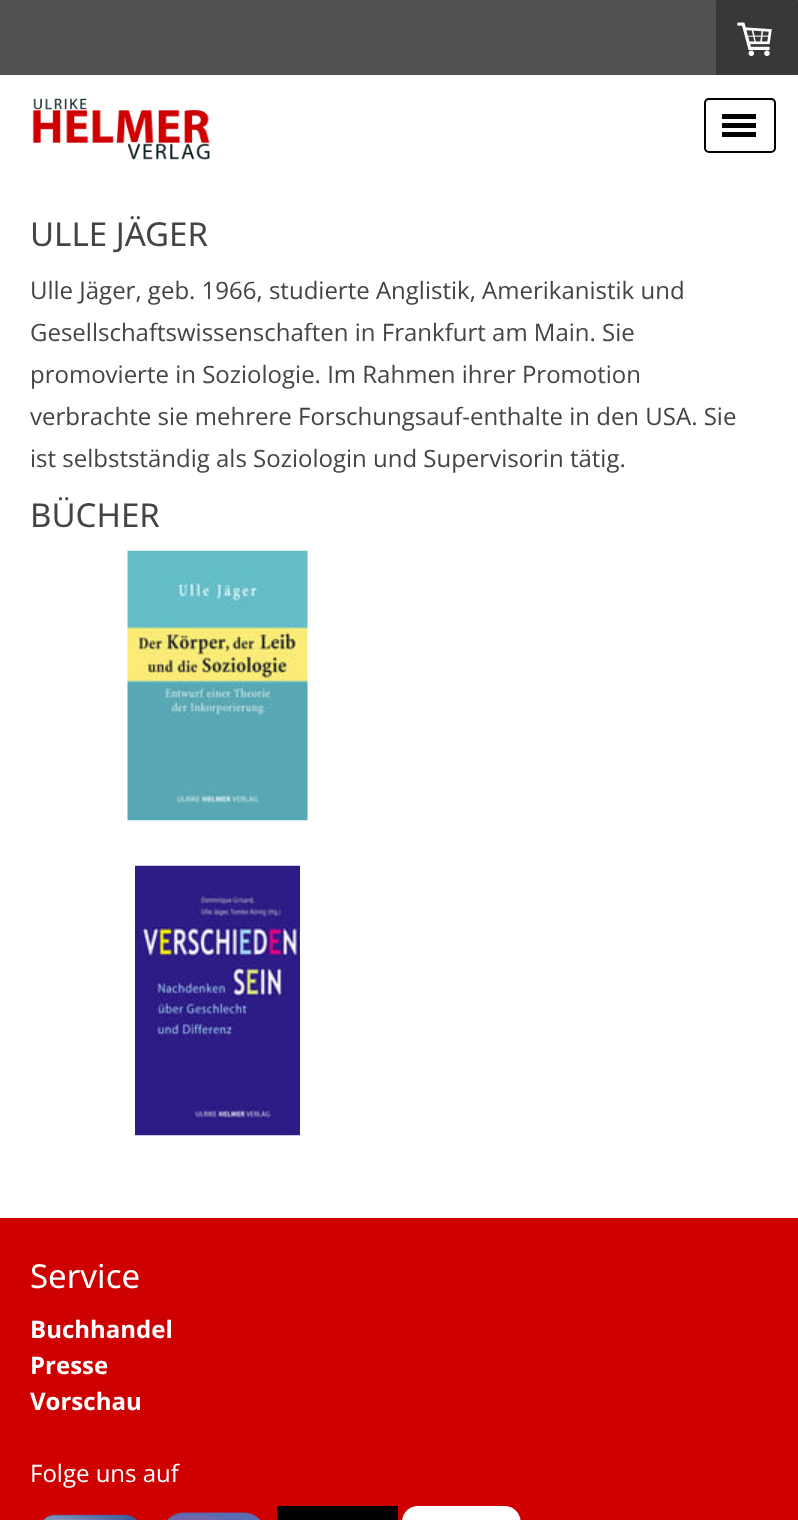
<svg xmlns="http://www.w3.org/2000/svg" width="798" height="1520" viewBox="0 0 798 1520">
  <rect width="100%" height="100%" fill="#fff"/>
  <path d="M0 0h798v75H0z" fill="#525252"/>
  <rect x="716" width="82" height="75" rx="1.5" fill="#383838"/>
  <image x="737" y="22" width="35" height="34" href="img/1.png"/>
  <image x="32" y="98" width="178" height="62" href="img/2.png"/>
  <rect x="705" y="99" width="70" height="53" rx="4" fill="none" stroke="#000" stroke-width="2"/>
  <path d="M722 123h34v5H722z" fill="#000"/>
  <path d="M722 114h34v5H722z" fill="#000"/>
  <path d="M722 132h34v5H722z" fill="#000"/>
  <image x="127" y="550" width="181" height="271" href="img/3.png"/>
  <image x="135" y="865" width="165" height="271" href="img/4.png"/>
  <path d="M0 1218h798v302H0z" fill="#ce0000"/>
  <image x="43" y="1514" width="94" height="6" href="img/5.png"/>
  <image x="167" y="1512" width="94" height="8" href="img/6.png"/>
  <path d="M277 1506h121v14H277z" fill="#000"/>
  <image x="402" y="1506" width="119" height="14" href="img/7.png"/>
  <text x="30" y="246" font-family="Noto Sans" font-size="33" fill="#444">ULLE JÄGER</text>
  <g font-family="Open Sans" font-size="24" fill="#444">
    <text x="30" y="299">Ulle Jäger, geb. 1966, studierte Anglistik, Amerikanistik und</text>
    <text x="30" y="341">Gesellschaftswissenschaften in Frankfurt am Main. Sie</text>
    <text x="30" y="383">promovierte in Soziologie. Im Rahmen ihrer Promotion</text>
    <text x="30" y="425">verbrachte sie mehrere Forschungsauf-enthalte in den USA. Sie</text>
    <text x="30" y="467">ist selbstständig als Soziologin und Supervisorin tätig.</text>
  </g>
  <text x="30" y="527" font-family="Noto Sans" font-size="33" fill="#444">BÜCHER</text>
  <text x="30" y="1288" font-family="Noto Sans" font-size="33" fill="#fff">Service</text>
  <g font-family="Open Sans" font-size="24" font-weight="bold" fill="#fff">
    <text x="30" y="1338">Buchhandel</text>
    <text x="30" y="1374">Presse</text>
    <text x="30" y="1410">Vorschau</text>
  </g>
  <text x="30" y="1482" font-family="Open Sans" font-size="24" fill="#fff">Folge uns auf</text>
</svg>
